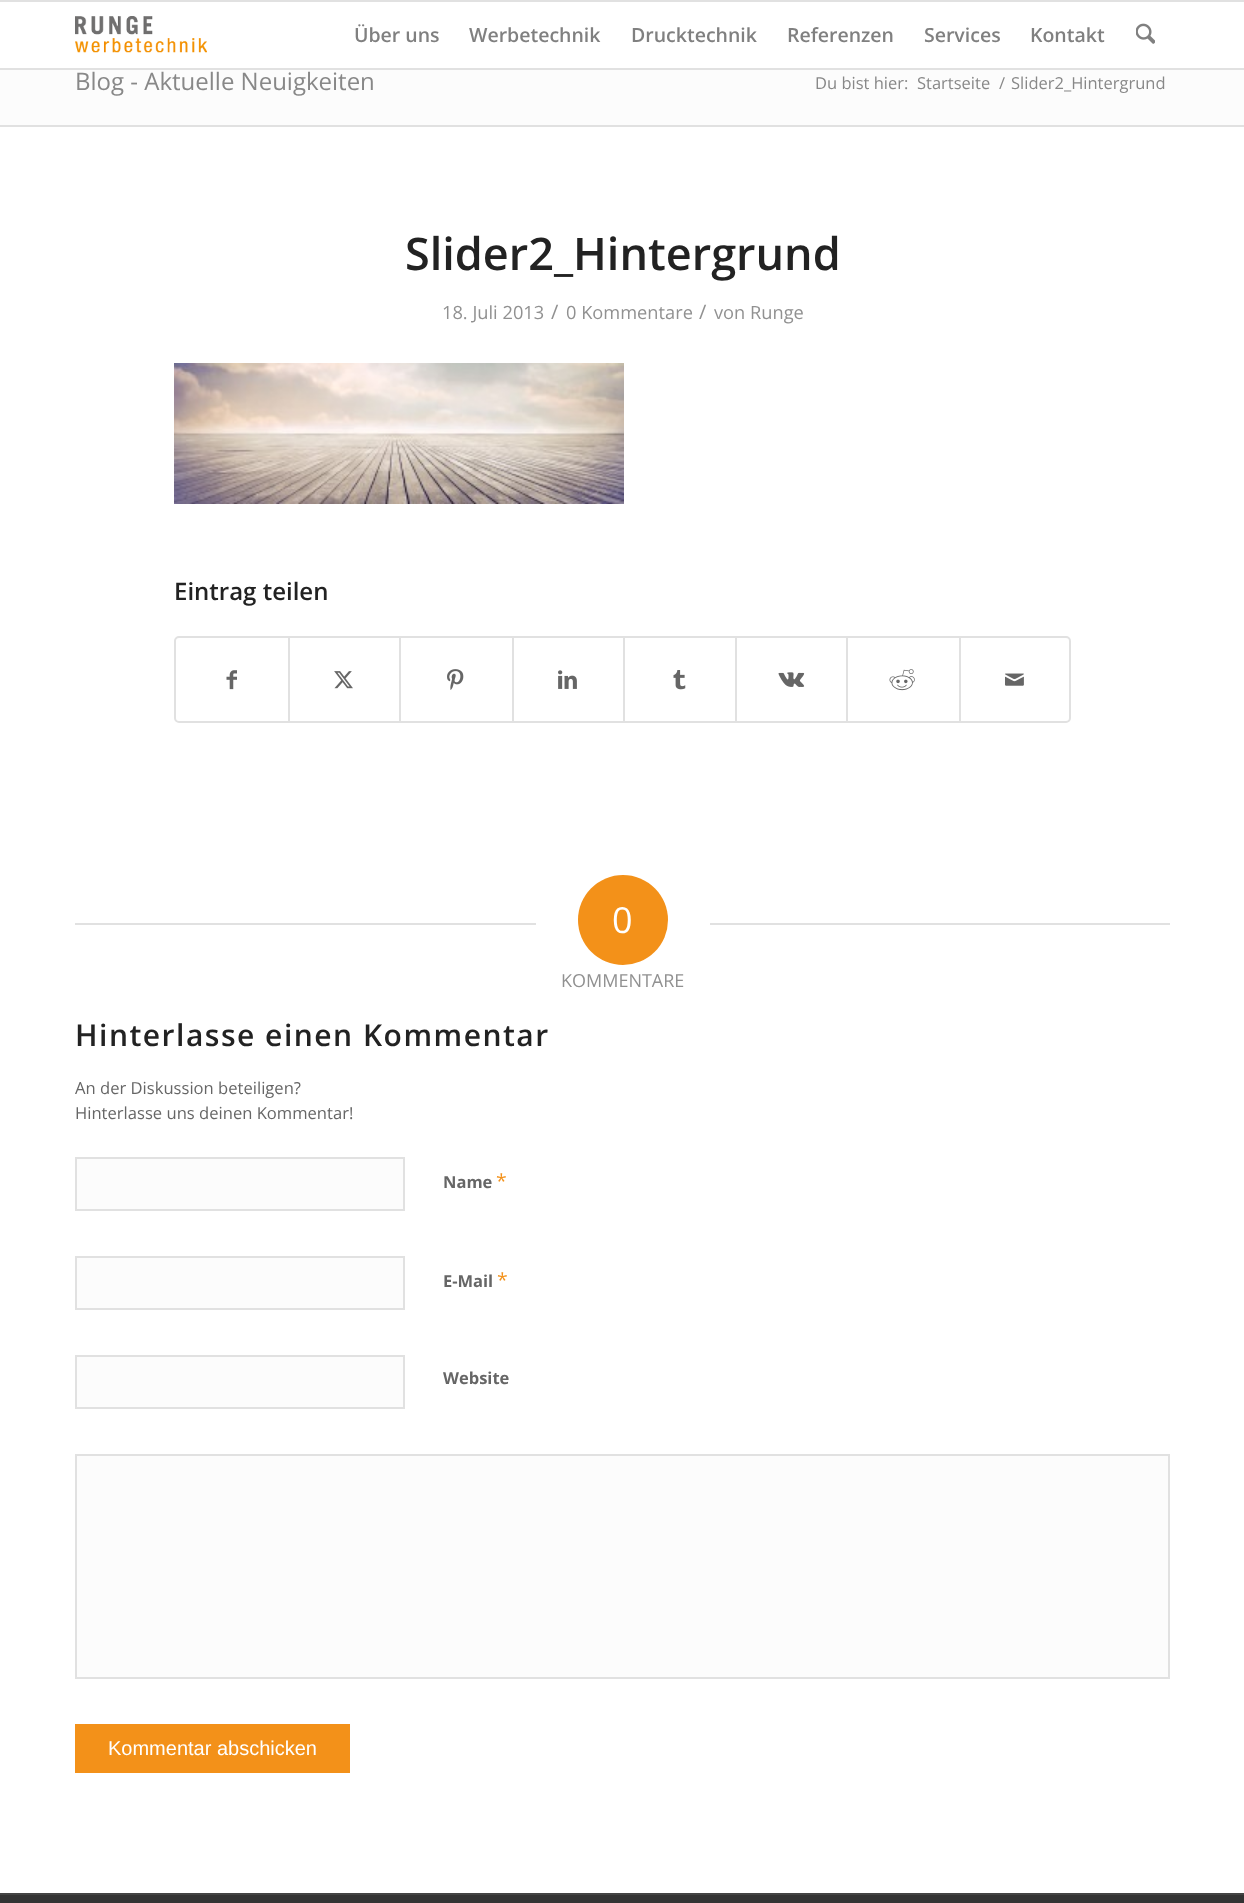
<svg xmlns="http://www.w3.org/2000/svg" width="1244" height="1903" viewBox="0 0 1244 1903">
  <rect width="100%" height="100%" fill="#fff"/>
  <path d="M0 0h1244v2H0z" fill="#e1e1e1"/>
  <path d="M0 68h1244v2H0z" fill="#e1e1e1"/>
  <image x="75" y="16" width="132" height="37" href="img/1.png"/>
  <image x="1136" y="23" width="19" height="21" href="img/2.png"/>
  <path d="M0 70h1244v55H0z" fill="#fcfcfc"/>
  <path d="M0 125h1244v2H0z" fill="#e1e1e1"/>
  <image x="174" y="363" width="450" height="141" href="img/3.png"/>
  <rect x="175" y="637" width="895" height="85" rx="4" fill="none" stroke="#e1e1e1" stroke-width="2"/>
  <image x="226" y="670" width="11" height="20" href="img/4.png"/>
  <path d="M288 638h2v84H288z" fill="#e1e1e1"/>
  <image x="334" y="671" width="19" height="18" href="img/5.png"/>
  <path d="M399 638h2v84H399z" fill="#e1e1e1"/>
  <image x="447" y="669" width="17" height="21" href="img/6.png"/>
  <path d="M512 638h2v84H512z" fill="#e1e1e1"/>
  <image x="558" y="670" width="19" height="19" href="img/7.png"/>
  <path d="M623 638h2v84H623z" fill="#e1e1e1"/>
  <image x="673" y="670" width="13" height="20" href="img/8.png"/>
  <path d="M735 638h2v84H735z" fill="#e1e1e1"/>
  <image x="778" y="672" width="27" height="15" href="img/9.png"/>
  <path d="M846 638h2v84H846z" fill="#e1e1e1"/>
  <image x="889" y="669" width="26" height="22" href="img/10.png"/>
  <path d="M959 638h2v84H959z" fill="#e1e1e1"/>
  <image x="1005" y="673" width="19" height="13" href="img/11.png"/>
  <path d="M75 923h461v2H75z" fill="#e1e1e1"/>
  <circle cx="623" cy="920" r="45" fill="#f39119"/>
  <path d="M710 923h460v2H710z" fill="#e1e1e1"/>
  <path d="M76 1158h328v52H76z" fill="#fcfcfc" stroke="#e1e1e1" stroke-width="2"/>
  <path d="M76 1257h328v52H76z" fill="#fcfcfc" stroke="#e1e1e1" stroke-width="2"/>
  <path d="M76 1356h328v52H76z" fill="#fcfcfc" stroke="#e1e1e1" stroke-width="2"/>
  <path d="M76 1455h1093v223H76z" fill="#fcfcfc" stroke="#e1e1e1" stroke-width="2"/>
  <path d="M75 1724h275v49H75z" fill="#f39119"/>
  <path d="M0 1895h1244v8H0z" fill="#333"/>
  <path d="M0 1893h1244v2H0z" fill="#444"/>
  <g font-family="Open Sans" font-size="19.5" font-weight="600" fill="#808080">
    <text x="354" y="42">Über uns</text>
    <text x="469" y="42">Werbetechnik</text>
    <text x="631" y="42">Drucktechnik</text>
    <text x="787" y="42">Referenzen</text>
    <text x="924" y="42">Services</text>
    <text x="1030" y="42">Kontakt</text>
  </g>
  <text x="75" y="90" font-family="Open Sans" font-size="24" fill="#888">Blog - Aktuelle Neuigkeiten</text>
  <g font-family="Open Sans" font-size="16.5" fill="#888">
    <text x="815" y="89">Du bist hier:</text>
    <text x="917" y="89">Startseite</text>
    <text x="999" y="89">/</text>
    <text x="1011" y="89">Slider2_Hintergrund</text>
  </g>
  <text x="405" y="270" font-family="Open Sans" font-size="45" font-weight="600" fill="#222">Slider2_Hintergrund</text>
  <text x="442" y="319" font-family="Open Sans" font-size="18.25" fill="#919191">18. Juli 2013</text>
  <text x="551" y="319" font-family="Open Sans" font-size="20" fill="#919191">/</text>
  <text x="566" y="319" font-family="Open Sans" font-size="18.25" fill="#919191">0 Kommentare</text>
  <text x="699" y="319" font-family="Open Sans" font-size="20" fill="#919191">/</text>
  <text x="714" y="319" font-family="Open Sans" font-size="18.25" fill="#919191">von Runge</text>
  <text x="174" y="600" font-family="Open Sans" font-size="24" font-weight="600" fill="#222">Eintrag teilen</text>
  <text x="612" y="933" font-family="Open Sans" font-size="36" fill="#fff">0</text>
  <text x="561" y="987" font-family="Open Sans" font-size="18" fill="#919191">KOMMENTARE</text>
  <text x="75" y="1046" font-family="Open Sans" font-size="30" font-weight="600" letter-spacing="1.5" fill="#222">Hinterlasse einen Kommentar</text>
  <g font-family="Open Sans" font-size="16.6" fill="#666">
    <text x="75" y="1094">An der Diskussion beteiligen?</text>
    <text x="75" y="1119">Hinterlasse uns deinen Kommentar!</text>
  </g>
  <text x="443" y="1188" font-family="Open Sans" font-size="16.5" font-weight="bold" fill="#666">Name</text>
  <text x="496" y="1188" font-family="Open Sans" font-size="19.5" fill="#f39119">*</text>
  <text x="443" y="1287" font-family="Open Sans" font-size="16.5" font-weight="bold" fill="#666">E-Mail</text>
  <text x="497" y="1287" font-family="Open Sans" font-size="19.5" fill="#f39119">*</text>
  <text x="443" y="1384" font-family="Open Sans" font-size="16.5" font-weight="bold" fill="#666">Website</text>
  <text x="108" y="1755" font-family="Liberation Sans" font-size="20" fill="#fff">Kommentar abschicken</text>
</svg>
